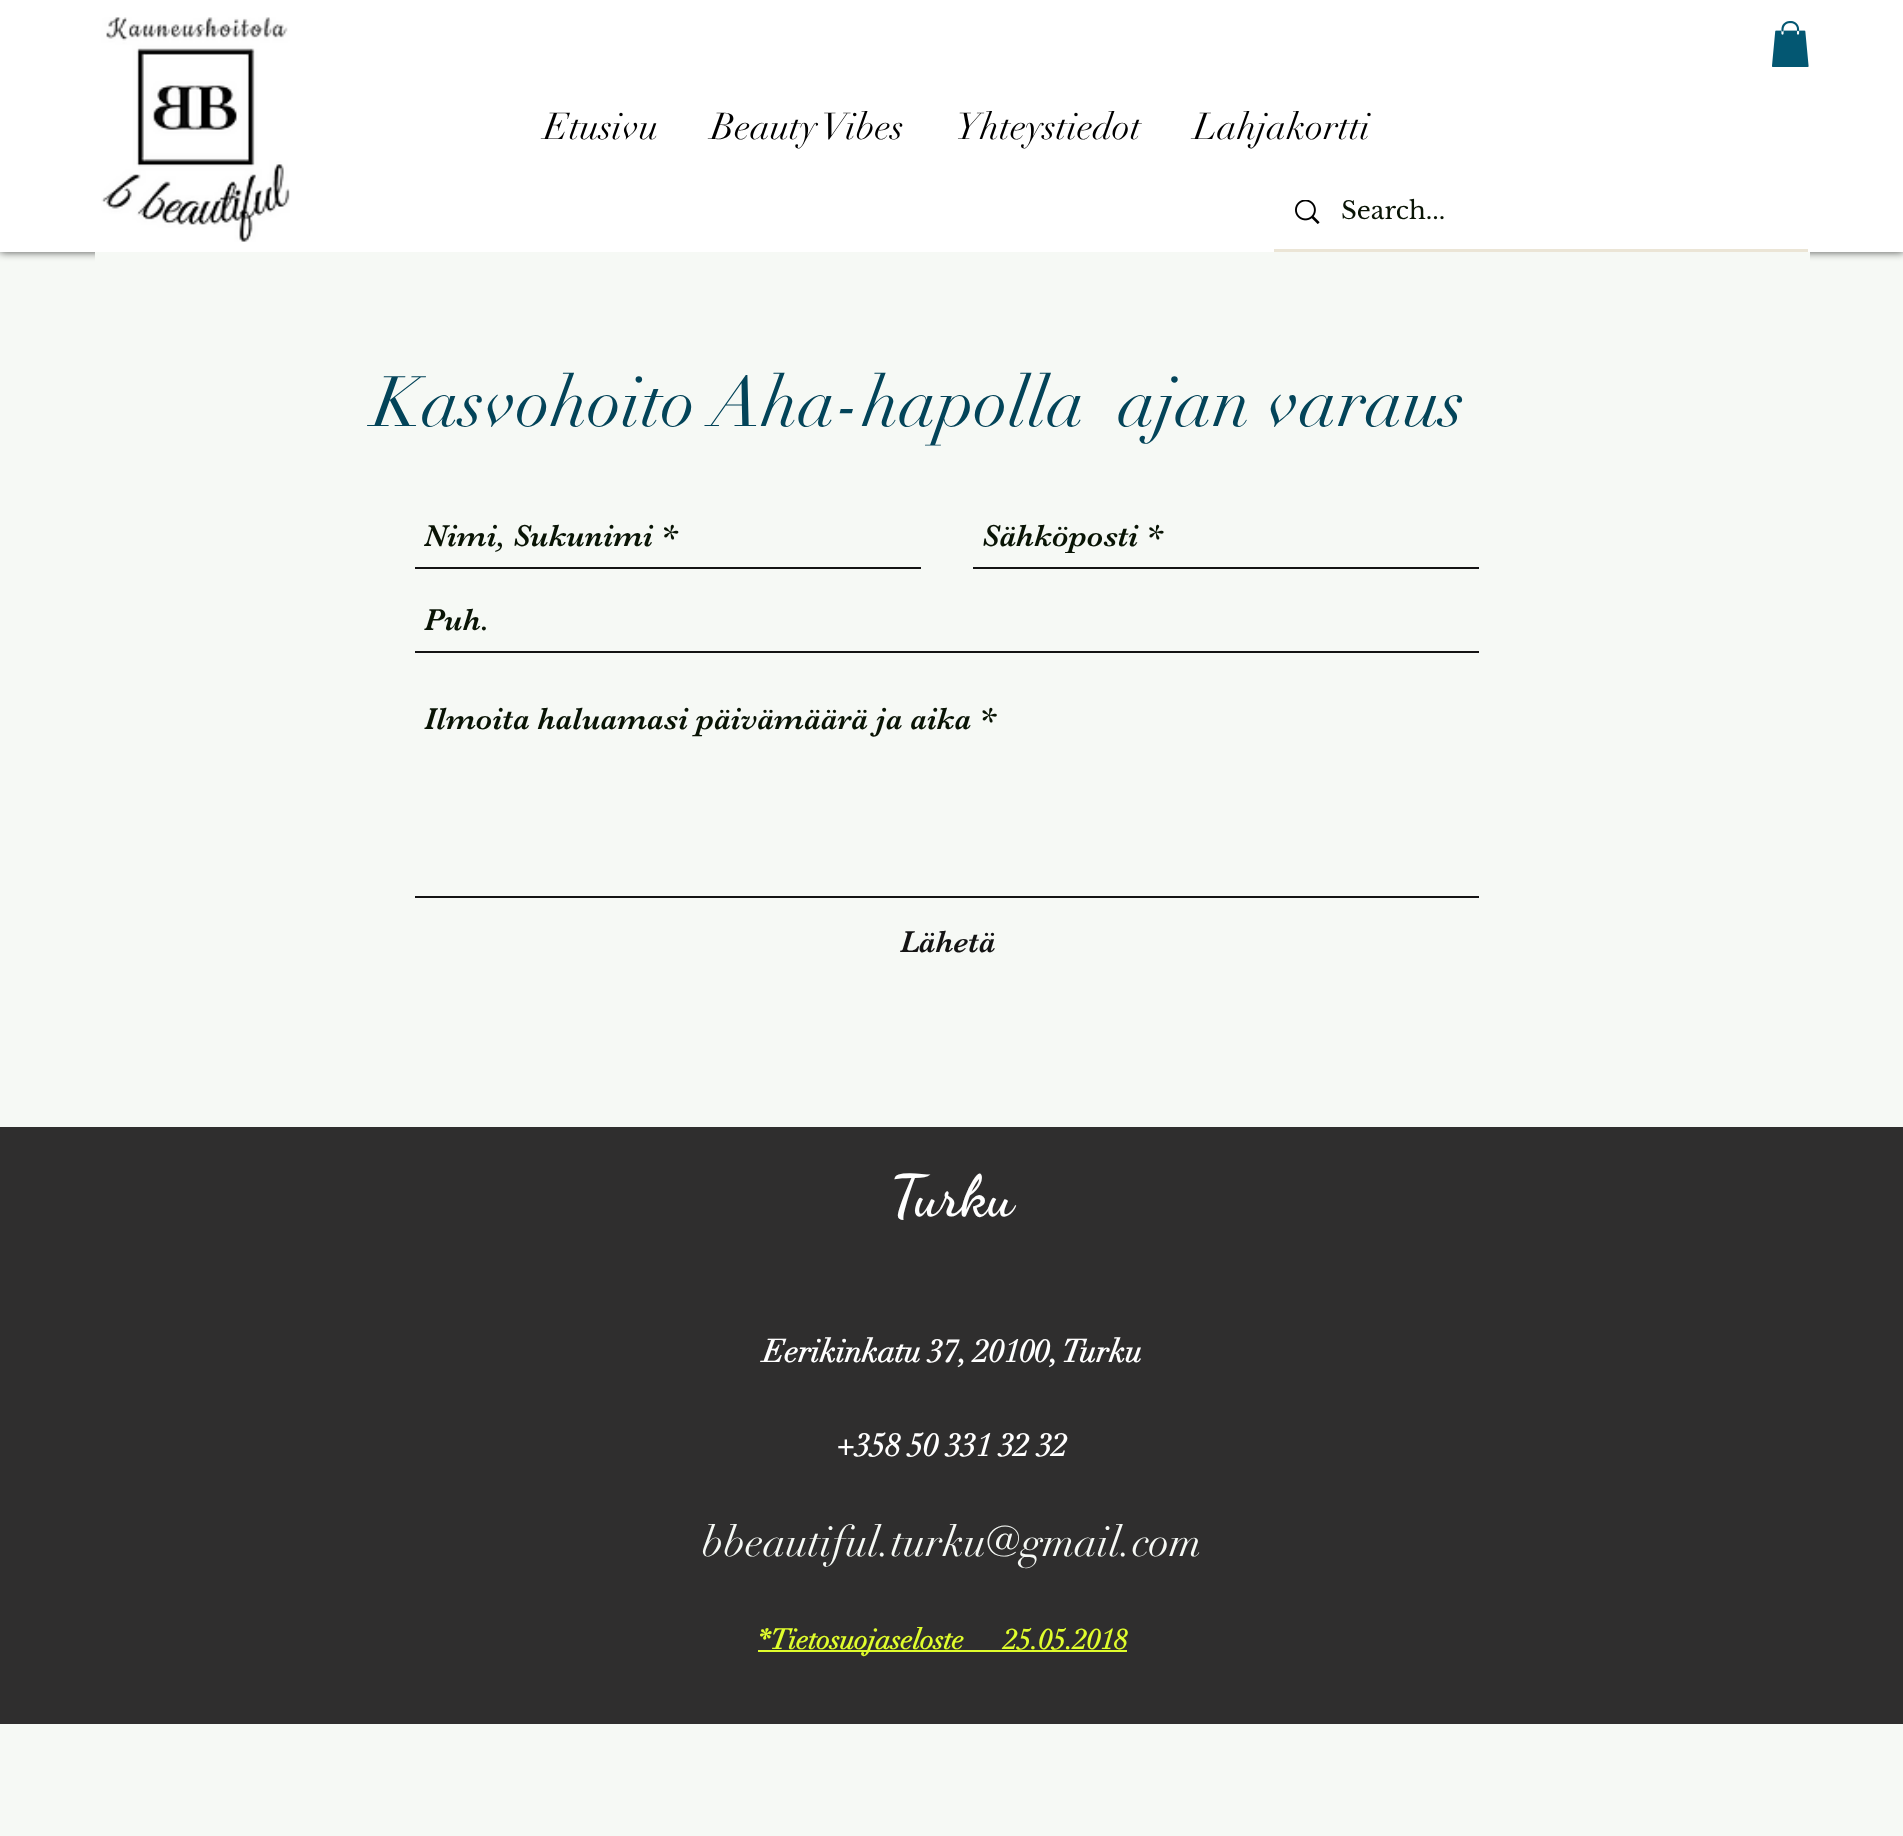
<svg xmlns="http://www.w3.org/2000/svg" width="1903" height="1836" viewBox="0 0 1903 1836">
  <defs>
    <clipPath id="clip1"><path d="M982 518h492v35H982z"/></clipPath>
  </defs>
  <rect width="100%" height="100%" fill="#f6f9f5"/>
  <path d="M0 0h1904v252H0z" fill="#000000b3" filter="blur(4.5px)"/>
  <path d="M0 0h1903v252H0z" fill="#fff"/>
  <image x="101" y="17" width="189" height="225" href="img/1.png"/>
  <image x="1772" y="21" width="37" height="46" href="img/2.png"/>
  <path d="M1274 249h534v3H1274z" fill="#ebe5d6"/>
  <image x="1295" y="200" width="25" height="24" href="img/3.png"/>
  <path d="M95 252h1715v10H95z" fill="#f6f9f5"/>
  <path d="M415 567h506v2H415z" fill="#141414"/>
  <path d="M973 567h506v2H973z" fill="#141414"/>
  <path d="M415 651h1064v2H415z" fill="#141414"/>
  <path d="M415 896h1064v2H415z" fill="#141414"/>
  <path d="M0 1127h1903v597H0z" fill="#2f2e2e"/>
  <path d="M758 1650h369v2H758z" fill="#e0fd2c"/>
  <g font-family="didot" font-size="36.75" fill="#000">
    <text x="544" y="139">Etusivu</text>
    <text x="711" y="139">Beauty Vibes</text>
    <text x="956" y="139">Yhteystiedot</text>
    <text x="1194" y="139">Lahjakortti</text>
  </g>
  <text x="1341" y="219" font-family="Libre Baskerville" font-size="24.5" fill="#091405">Search...</text>
  <text x="373" y="426" font-family="didot" font-size="70" fill="#034459" xml:space="preserve">Kasvohoito Aha-hapolla  ajan varaus</text>
  <text x="424" y="546" font-family="'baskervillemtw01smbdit'" font-size="31.5" fill="#091405">Nimi, Sukunimi *</text>
  <g clip-path="url(#clip1)">
    <text x="982" y="546" font-family="'baskervillemtw01smbdit'" font-size="31.5" fill="#091405">Sähköposti *</text>
  </g>
  <g font-family="'baskervillemtw01smbdit'" font-size="31.5" fill="#091405">
    <text x="424" y="630">Puh.</text>
    <text x="424" y="729">Ilmoita haluamasi päivämäärä ja aika *</text>
  </g>
  <text x="900" y="952" font-family="'baskervillemtw01smbdit'" font-size="31.5" fill="#141414">Lähetä</text>
  <text x="890" y="1215" font-family="Dancing Script" font-size="58" font-weight="bold" fill="#fff">Turku</text>
  <g font-family="didot" font-size="31.5" font-weight="bold" fill="#fff">
    <text x="763" y="1362">Eerikinkatu 37, 20100, Turku</text>
    <text x="836" y="1456">+358 50 331 32 32</text>
  </g>
  <text x="702" y="1556" font-family="didot" font-size="42" fill="#f6f9f5">bbeautiful.turku@gmail.com</text>
  <text x="758" y="1649" font-family="didot" font-size="28" font-weight="bold" fill="#e0fd2c" xml:space="preserve">*Tietosuojaseloste      25.05.2018</text>
</svg>
